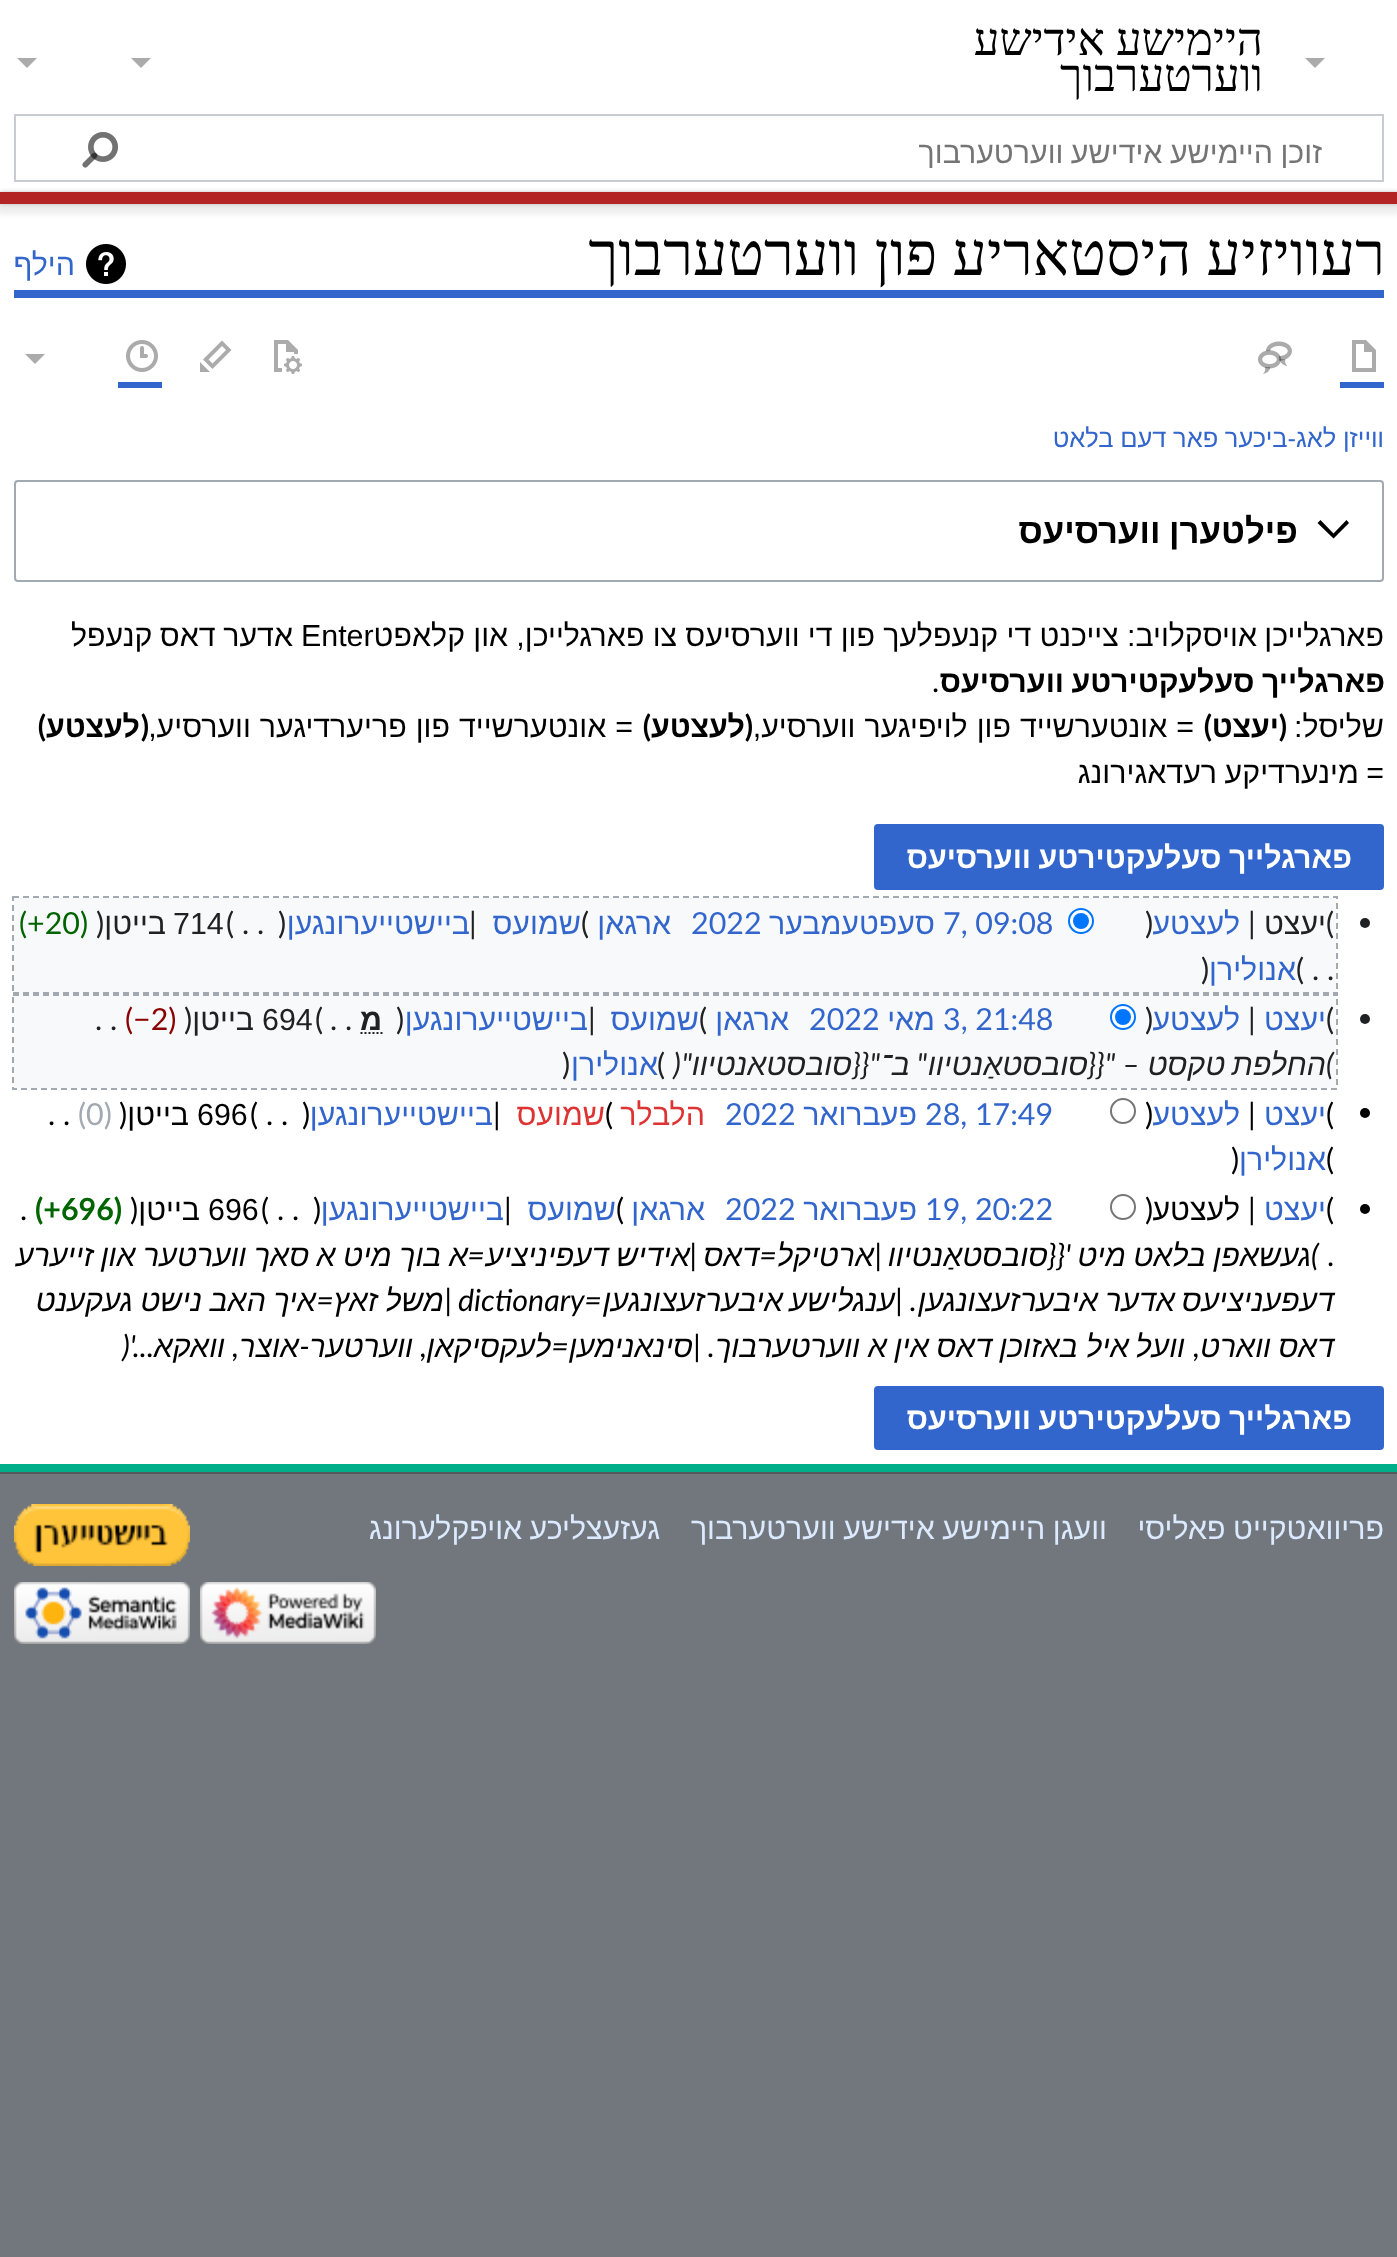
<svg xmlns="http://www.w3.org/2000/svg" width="1397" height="2257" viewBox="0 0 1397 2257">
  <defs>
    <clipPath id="clip1"><path d="M160 132h1162v36H160z"/></clipPath>
  </defs>
  <rect width="100%" height="100%" fill="#72777d"/>
  <path d="M0 0h1397v192H0z" fill="#fff"/>
  <path d="M37 58L27 68L17 58Z" fill="#ababab"/>
  <path d="M15 115h1368v66H15z" fill="none" stroke="#c8ccd1" stroke-width="2"/>
  <image x="82" y="132" width="36" height="36" href="img/1.png"/>
  <image x="82" y="132" width="36" height="36" href="img/2.png"/>
  <path d="M0 204h1397v1260H0z" fill="#fff"/>
  <path d="M0 192h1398v12H0z" fill="#00000033" filter="blur(2px)"/>
  <path d="M-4 194h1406v20H-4z" fill="#00000012" filter="blur(3px)"/>
  <path d="M0 192h1397v12H0z" fill="#b32424"/>
  <path d="M0 1464h1397v8H0z" fill="#00af89"/>
  <path d="M1325 58L1315 68L1305 58Z" fill="#ababab"/>
  <path d="M151 58L141 68L131 58Z" fill="#ababab"/>
  <path d="M14 290h1370v8H14z" fill="#36c"/>
  <image x="86" y="244" width="40" height="40" href="img/3.png"/>
  <path d="M1340 382h44v6H1340z" fill="#36c"/>
  <path d="M1352 340V372H1376V350L1366 340ZM1356 344H1364V352H1372V368H1356Z" fill="#ababab"/>
  <image x="1258" y="341" width="34" height="33" href="img/4.png"/>
  <image x="274" y="340" width="28" height="34" href="img/5.png"/>
  <path d="M222 340.5L203 359.5L212.5 369L231.5 350ZM222 346L226 350L212.5 363.5L208.5 359.5ZM210 372H200V362Z" fill="#ababab"/>
  <path d="M118 382h44v6H118z" fill="#36c"/>
  <image x="126" y="340" width="32" height="32" href="img/6.png"/>
  <path d="M45 354L35 364L25 354Z" fill="#ababab"/>
  <rect x="15" y="481" width="1368" height="100" rx="3" fill="none" stroke="#a2a9b1" stroke-width="2"/>
  <path d="M1346.5 520L1333.5 533.5L1320.5 520L1317.5 523L1333.5 538.5L1349 523Z" fill="#000"/>
  <rect x="875" y="825" width="508" height="64" rx="3" fill="#36c" stroke="#36c" stroke-width="2"/>
  <path d="M14 898h1322v190H14z" fill="#f8f9fa"/>
  <circle cx="1365" cy="923" r="5" fill="#202122"/>
  <circle cx="1081" cy="921" r="12" fill="#fff" stroke="#0075ff" stroke-width="2"/>
  <circle cx="1081" cy="921" r="8" fill="#0075ff"/>
  <circle cx="1365" cy="1019" r="5" fill="#202122"/>
  <circle cx="1123" cy="1017" r="12" fill="#fff" stroke="#0075ff" stroke-width="2"/>
  <circle cx="1123" cy="1017" r="8" fill="#0075ff"/>
  <path d="M360.5 1033H382.5" fill="none" stroke="#202122" stroke-width="2" stroke-dasharray="2 2"/>
  <circle cx="1365" cy="1113" r="5" fill="#000"/>
  <circle cx="1123" cy="1111" r="12" fill="none" stroke="#767676" stroke-width="2"/>
  <circle cx="1365" cy="1209" r="5" fill="#000"/>
  <circle cx="1123" cy="1207" r="12" fill="none" stroke="#767676" stroke-width="2"/>
  <rect x="875" y="1387" width="508" height="62" rx="3" fill="#36c" stroke="#36c" stroke-width="2"/>
  <path d="M0 1472h1397v2H0z" fill="#54595d"/>
  <image x="14" y="1504" width="176" height="62" href="img/7.png"/>
  <image x="200" y="1582" width="176" height="62" href="img/8.png"/>
  <image x="14" y="1582" width="176" height="62" href="img/9.png"/>
  <g font-family="Liberation Serif" font-size="45.5" direction="rtl" fill="#000">
    <text x="1263" y="55">היימישע אידישע</text>
    <text x="1263" y="91">ווערטערבוך</text>
  </g>
  <g clip-path="url(#clip1)">
    <text x="1322" y="163" word-spacing="-1" font-family="Liberation Sans" font-size="30.4" direction="rtl" fill="#757575">זוכן היימישע אידישע ווערטערבוך</text>
  </g>
  <text x="1385" y="275" font-family="Liberation Serif" font-size="60.75" direction="rtl" fill="#000">רעוויזיע היסטאריע פון ווערטערבוך</text>
  <text x="75" y="275" font-family="Liberation Sans" font-size="30.4" direction="rtl" fill="#36c">הילף</text>
  <text x="1384" y="447" word-spacing="-0.5" font-family="Liberation Sans" font-size="25.5" direction="rtl" fill="#36c">װייזן לאג-ביכער פאר דעם בלאט</text>
  <text x="1298" y="543" word-spacing="-1" font-family="Liberation Sans" font-size="34.75" font-weight="bold" direction="rtl" fill="#000">פילטערן ווערסיעס</text>
  <g font-family="Liberation Sans" font-size="30.4" direction="rtl" fill="#000">
    <text x="1384" y="646">פארגלייכן</text>
    <text x="1257" y="646" word-spacing="-0.25">אויסקלויב: צייכנט די קנעפלעך פון די ווערסיעס צו פארגלייכן, און קלאפט</text>
  </g>
  <text x="301" y="646" font-family="Liberation Sans" font-size="30.4" fill="#000">Enter</text>
  <text x="293" y="646" word-spacing="-1" font-family="Liberation Sans" font-size="30.4" direction="rtl" fill="#000">אדער דאס קנעפל</text>
  <text x="1385" y="692" word-spacing="-1" font-family="Liberation Sans" font-size="30.4" font-weight="bold" direction="rtl" fill="#000">פארגלייך סעלעקטירטע ווערסיעס</text>
  <text x="932" y="692" font-family="Lato" font-size="30.4" fill="#000">.</text>
  <text x="1384" y="737" font-family="Liberation Sans" font-size="30.4" direction="rtl" fill="#000">שליסל:</text>
  <text x="1287" y="737" font-family="Lato" font-size="30.4" font-weight="bold" direction="rtl" fill="#000">(</text>
  <text x="1279" y="737" font-family="Liberation Sans" font-size="30.4" font-weight="bold" direction="rtl" fill="#000">יעצט</text>
  <text x="1212" y="737" font-family="Lato" font-size="30.4" font-weight="bold" direction="rtl" fill="#000">)</text>
  <text x="1194" y="737" word-spacing="0.5" font-family="Liberation Sans" font-size="30.4" direction="rtl" fill="#000">= אונטערשייד פון לויפיגער ווערסיע,</text>
  <text x="753" y="737" font-family="Lato" font-size="30.4" font-weight="bold" direction="rtl" fill="#000">(</text>
  <text x="745" y="737" font-family="Liberation Sans" font-size="30.4" font-weight="bold" direction="rtl" fill="#000">לעצטע</text>
  <text x="651" y="737" font-family="Lato" font-size="30.4" font-weight="bold" direction="rtl" fill="#000">)</text>
  <text x="633" y="737" word-spacing="0.5" font-family="Liberation Sans" font-size="30.4" direction="rtl" fill="#000">= אונטערשייד פון פריערדיגער ווערסיע,</text>
  <text x="149" y="737" font-family="Lato" font-size="30.4" font-weight="bold" direction="rtl" fill="#000">(</text>
  <text x="140" y="737" font-family="Liberation Sans" font-size="30.4" font-weight="bold" direction="rtl" fill="#000">לעצטע</text>
  <text x="46" y="737" font-family="Lato" font-size="30.4" font-weight="bold" direction="rtl" fill="#000">)</text>
  <text x="1384" y="783" word-spacing="-1" font-family="Liberation Sans" font-size="30.4" direction="rtl" fill="#000">= מינערדיקע רעדאגירונג</text>
  <text x="1352" y="868" word-spacing="-1" font-family="Liberation Sans" font-size="30.4" font-weight="bold" direction="rtl" fill="#fff">פארגלייך סעלעקטירטע ווערסיעס</text>
  <text x="1326" y="934" font-family="Lato" font-size="30.4" fill="#202122">(</text>
  <text x="1326" y="934" font-family="Liberation Sans" font-size="30.4" direction="rtl" fill="#202122">יעצט</text>
  <text x="1248" y="934" font-family="Lato" font-size="30.4" fill="#202122">|</text>
  <text x="1240" y="934" font-family="Liberation Sans" font-size="30.4" direction="rtl" fill="#36c">לעצטע</text>
  <text x="1145" y="934" font-family="Lato" font-size="30.4" fill="#202122">)</text>
  <text x="943" y="934" font-family="Lato" font-size="30.4" fill="#36c">7, 09:08</text>
  <text x="935" y="934" font-family="Liberation Sans" font-size="30.4" direction="rtl" fill="#36c">סעפטעמבער</text>
  <text x="691" y="934" font-family="Lato" font-size="30.4" fill="#36c">2022</text>
  <text x="671" y="934" font-family="Liberation Sans" font-size="30.4" direction="rtl" fill="#36c">ארגאן</text>
  <text x="581" y="934" font-family="Lato" font-size="30.4" fill="#202122">(</text>
  <text x="581" y="934" font-family="Liberation Sans" font-size="30.4" direction="rtl" fill="#36c">שמועס</text>
  <text x="469" y="934" font-family="Lato" font-size="30.4" fill="#202122">|</text>
  <text x="470" y="934" font-family="Liberation Sans" font-size="30.4" direction="rtl" fill="#36c">ביישטייערונגען</text>
  <g font-family="Lato" font-size="30.4" fill="#202122">
    <text x="278" y="934">)</text>
    <text x="226" y="934">(</text>
  </g>
  <text x="173" y="934" font-family="Liberation Sans" font-size="30.4" fill="#202122">714</text>
  <text x="166" y="934" font-family="Liberation Sans" font-size="30.4" direction="rtl" fill="#202122">בייטן</text>
  <text x="96" y="934" font-family="Lato" font-size="30.4" fill="#202122">)</text>
  <text x="19" y="934" font-family="Lato" font-size="30.4" fill="#006400">(+20)</text>
  <g font-family="Lato" font-size="30.4" fill="#202122">
    <text x="242" y="934">. .</text>
    <text x="1312" y="980">. .</text>
    <text x="1296" y="980">(</text>
  </g>
  <text x="1296" y="980" font-family="Liberation Sans" font-size="30.4" direction="rtl" fill="#36c">אנולירן</text>
  <text x="1201" y="980" font-family="Lato" font-size="30.4" fill="#202122">)</text>
  <path d="M13 897H1337V995H13Z" fill="none" stroke="#a2a9b1" stroke-width="2" stroke-dasharray="6 4"/>
  <text x="1326" y="1030" font-family="Lato" font-size="30.4" fill="#202122">(</text>
  <text x="1326" y="1030" font-family="Liberation Sans" font-size="30.4" direction="rtl" fill="#36c">יעצט</text>
  <text x="1248" y="1030" font-family="Lato" font-size="30.4" fill="#202122">|</text>
  <text x="1240" y="1030" font-family="Liberation Sans" font-size="30.4" direction="rtl" fill="#36c">לעצטע</text>
  <text x="1145" y="1030" font-family="Lato" font-size="30.4" fill="#202122">)</text>
  <text x="943" y="1030" font-family="Lato" font-size="30.4" fill="#36c">3, 21:48</text>
  <text x="935" y="1030" font-family="Liberation Sans" font-size="30.4" direction="rtl" fill="#36c">מאי</text>
  <text x="809" y="1030" font-family="Lato" font-size="30.4" fill="#36c">2022</text>
  <text x="789" y="1030" font-family="Liberation Sans" font-size="30.4" direction="rtl" fill="#36c">ארגאן</text>
  <text x="699" y="1030" font-family="Lato" font-size="30.4" fill="#202122">(</text>
  <text x="699" y="1030" font-family="Liberation Sans" font-size="30.4" direction="rtl" fill="#36c">שמועס</text>
  <text x="588" y="1030" font-family="Lato" font-size="30.4" fill="#202122">|</text>
  <text x="588" y="1030" font-family="Liberation Sans" font-size="30.4" direction="rtl" fill="#36c">ביישטייערונגען</text>
  <text x="396" y="1030" font-family="Lato" font-size="30.4" fill="#202122">)</text>
  <text x="382" y="1030" font-family="Liberation Sans" font-size="30.4" font-weight="bold" direction="rtl" fill="#202122">מ</text>
  <text x="315" y="1030" font-family="Lato" font-size="30.4" fill="#202122">(</text>
  <text x="262" y="1030" font-family="Liberation Sans" font-size="30.4" fill="#202122">694</text>
  <text x="254" y="1030" font-family="Liberation Sans" font-size="30.4" direction="rtl" fill="#202122">בייטן</text>
  <text x="184" y="1030" font-family="Lato" font-size="30.4" fill="#202122">)</text>
  <text x="125" y="1030" font-family="Lato" font-size="30.4" fill="#8b0000">(−2)</text>
  <g font-family="Lato" font-size="30.4" fill="#202122">
    <text x="330" y="1030">. .</text>
    <text x="95" y="1030">. .</text>
  </g>
  <text x="1326" y="1075" font-family="Lato" font-size="30.4" font-style="italic" fill="#202122">(</text>
  <g font-family="Liberation Sans" font-size="30.4" font-style="italic" direction="rtl" fill="#202122">
    <text x="1326" y="1075">החלפת</text>
    <text x="1225" y="1075">טקסט</text>
  </g>
  <text x="1140" y="1075" font-family="Lato" font-size="30.4" font-style="italic" direction="rtl" fill="#202122">– "{{</text>
  <text x="1088" y="1075" font-family="Liberation Sans" font-size="30.4" font-style="italic" direction="rtl" fill="#202122">סובסטאַנטיוו</text>
  <text x="927" y="1075" font-family="Lato" font-size="30.4" font-style="italic" direction="rtl" fill="#202122">"</text>
  <text x="910" y="1075" font-family="Liberation Sans" font-size="30.4" font-style="italic" direction="rtl" fill="#202122">ב־</text>
  <text x="880" y="1075" font-family="Lato" font-size="30.4" font-style="italic" direction="rtl" fill="#202122">"{{</text>
  <text x="852" y="1075" font-family="Liberation Sans" font-size="30.4" font-style="italic" direction="rtl" fill="#202122">סובסטאנטיוו</text>
  <text x="692" y="1075" font-family="Lato" font-size="30.4" font-style="italic" direction="rtl" fill="#202122">"</text>
  <text x="673" y="1075" font-family="Lato" font-size="30.4" font-style="italic" fill="#202122">)</text>
  <text x="657" y="1075" font-family="Lato" font-size="30.4" fill="#202122">(</text>
  <text x="658" y="1075" font-family="Liberation Sans" font-size="30.4" direction="rtl" fill="#36c">אנולירן</text>
  <text x="562" y="1075" font-family="Lato" font-size="30.4" fill="#202122">)</text>
  <path d="M13 993H1337V1089H13Z" fill="none" stroke="#a2a9b1" stroke-width="2" stroke-dasharray="6 4"/>
  <text x="1326" y="1125" font-family="Lato" font-size="30.4" fill="#000">(</text>
  <text x="1326" y="1125" font-family="Liberation Sans" font-size="30.4" direction="rtl" fill="#36c">יעצט</text>
  <text x="1248" y="1125" font-family="Lato" font-size="30.4" fill="#000">|</text>
  <text x="1240" y="1125" font-family="Liberation Sans" font-size="30.4" direction="rtl" fill="#36c">לעצטע</text>
  <text x="1145" y="1125" font-family="Lato" font-size="30.4" fill="#000">)</text>
  <text x="925" y="1125" font-family="Lato" font-size="30.4" fill="#36c">28, 17:49</text>
  <text x="917" y="1125" font-family="Liberation Sans" font-size="30.4" direction="rtl" fill="#36c">פעברואר</text>
  <text x="725" y="1125" font-family="Lato" font-size="30.4" fill="#36c">2022</text>
  <text x="705" y="1125" font-family="Liberation Sans" font-size="30.4" direction="rtl" fill="#d33">הלבלר</text>
  <text x="605" y="1125" font-family="Lato" font-size="30.4" fill="#000">(</text>
  <text x="605" y="1125" font-family="Liberation Sans" font-size="30.4" direction="rtl" fill="#d33">שמועס</text>
  <text x="493" y="1125" font-family="Lato" font-size="30.4" fill="#000">|</text>
  <text x="493" y="1125" font-family="Liberation Sans" font-size="30.4" direction="rtl" fill="#36c">ביישטייערונגען</text>
  <g font-family="Lato" font-size="30.4" fill="#000">
    <text x="302" y="1125">)</text>
    <text x="250" y="1125">(</text>
  </g>
  <text x="197" y="1125" font-family="Liberation Sans" font-size="30.4" fill="#000">696</text>
  <text x="189" y="1125" font-family="Liberation Sans" font-size="30.4" direction="rtl" fill="#000">בייטן</text>
  <text x="119" y="1125" font-family="Lato" font-size="30.4" fill="#000">)</text>
  <text x="78" y="1125" font-family="Lato" font-size="30.4" fill="#a2a9b1">(0)</text>
  <g font-family="Lato" font-size="30.4" fill="#000">
    <text x="266" y="1125">. .</text>
    <text x="48" y="1125">. .</text>
    <text x="1326" y="1170">(</text>
  </g>
  <text x="1326" y="1170" font-family="Liberation Sans" font-size="30.4" direction="rtl" fill="#36c">אנולירן</text>
  <g font-family="Lato" font-size="30.4" fill="#000">
    <text x="1231" y="1170">)</text>
    <text x="1326" y="1220">(</text>
  </g>
  <text x="1326" y="1220" font-family="Liberation Sans" font-size="30.4" direction="rtl" fill="#36c">יעצט</text>
  <text x="1248" y="1220" font-family="Lato" font-size="30.4" fill="#000">|</text>
  <text x="1240" y="1220" font-family="Liberation Sans" font-size="30.4" direction="rtl" fill="#000">לעצטע</text>
  <text x="1145" y="1220" font-family="Lato" font-size="30.4" fill="#000">)</text>
  <text x="925" y="1220" font-family="Lato" font-size="30.4" fill="#36c">19, 20:22</text>
  <text x="917" y="1220" font-family="Liberation Sans" font-size="30.4" direction="rtl" fill="#36c">פעברואר</text>
  <text x="725" y="1220" font-family="Lato" font-size="30.4" fill="#36c">2022</text>
  <text x="705" y="1220" font-family="Liberation Sans" font-size="30.4" direction="rtl" fill="#36c">ארגאן</text>
  <text x="616" y="1220" font-family="Lato" font-size="30.4" fill="#000">(</text>
  <text x="616" y="1220" font-family="Liberation Sans" font-size="30.4" direction="rtl" fill="#36c">שמועס</text>
  <text x="504" y="1220" font-family="Lato" font-size="30.4" fill="#000">|</text>
  <text x="504" y="1220" font-family="Liberation Sans" font-size="30.4" direction="rtl" fill="#36c">ביישטייערונגען</text>
  <g font-family="Lato" font-size="30.4" fill="#000">
    <text x="313" y="1220">)</text>
    <text x="261" y="1220">(</text>
  </g>
  <text x="208" y="1220" font-family="Liberation Sans" font-size="30.4" fill="#000">696</text>
  <text x="200" y="1220" font-family="Liberation Sans" font-size="30.4" direction="rtl" fill="#000">בייטן</text>
  <text x="130" y="1220" font-family="Lato" font-size="30.4" fill="#000">)</text>
  <text x="35" y="1220" font-family="Lato" font-size="30.4" font-weight="bold" fill="#006400">(+696)</text>
  <g font-family="Lato" font-size="30.4" fill="#000">
    <text x="277" y="1220">. .</text>
    <text x="20" y="1220">.</text>
  </g>
  <text x="1311" y="1266" font-family="Lato" font-size="30.4" font-style="italic" fill="#000">(</text>
  <text x="1311" y="1266" word-spacing="-1" font-family="Liberation Sans" font-size="30.4" font-style="italic" direction="rtl" fill="#000">געשאפן בלאט מיט</text>
  <text x="1071" y="1266" font-family="Lato" font-size="30.4" font-style="italic" direction="rtl" fill="#000">'{{</text>
  <text x="1048" y="1266" font-family="Liberation Sans" font-size="30.4" font-style="italic" direction="rtl" fill="#000">סובסטאַנטיוו</text>
  <text x="882" y="1266" font-family="Lato" font-size="30.4" font-style="italic" direction="rtl" fill="#000">|</text>
  <text x="874" y="1266" font-family="Liberation Sans" font-size="30.4" font-style="italic" direction="rtl" fill="#000">ארטיקל</text>
  <text x="777" y="1266" font-family="Lato" font-size="30.4" font-style="italic" direction="rtl" fill="#000">=</text>
  <text x="759" y="1266" font-family="Liberation Sans" font-size="30.4" font-style="italic" direction="rtl" fill="#000">דאס</text>
  <text x="697" y="1266" font-family="Lato" font-size="30.4" font-style="italic" direction="rtl" fill="#000">|</text>
  <g font-family="Liberation Sans" font-size="30.4" font-style="italic" direction="rtl" fill="#000">
    <text x="690" y="1266" word-spacing="-1">אידיש דעפיניציע</text>
    <text x="468" y="1266" word-spacing="-1">א בוך מיט א סאך ווערטער און זייערע</text>
  </g>
  <text x="485" y="1266" font-family="Lato" font-size="30.4" font-style="italic" direction="rtl" fill="#000">=</text>
  <text x="1327" y="1266" font-family="Lato" font-size="30.4" fill="#000">.</text>
  <g font-family="Liberation Sans" font-size="30.4" font-style="italic" direction="rtl" fill="#000">
    <text x="1334" y="1311">דעפעניציעס</text>
    <text x="1175" y="1311">אדער</text>
    <text x="1098" y="1311">איבערזעצונגען</text>
  </g>
  <text x="917" y="1311" font-family="Lato" font-size="30.4" font-style="italic" direction="rtl" fill="#000">. |</text>
  <g font-family="Liberation Sans" font-size="30.4" font-style="italic" direction="rtl" fill="#000">
    <text x="895" y="1311">ענגלישע</text>
    <text x="783" y="1311">איבערזעצונגען</text>
  </g>
  <text x="602" y="1311" font-family="Lato" font-size="30.4" font-style="italic" direction="rtl" fill="#000">=</text>
  <text x="458" y="1311" font-family="Lato" font-size="30.4" font-style="italic" fill="#000">dictionary</text>
  <text x="452" y="1311" font-family="Lato" font-size="30.4" font-style="italic" direction="rtl" fill="#000">|</text>
  <g font-family="Liberation Sans" font-size="30.4" font-style="italic" direction="rtl" fill="#000">
    <text x="444" y="1311" word-spacing="-1">משל זאץ</text>
    <text x="316" y="1311" word-spacing="-1">איך האב נישט געקענט</text>
  </g>
  <text x="334" y="1311" font-family="Lato" font-size="30.4" font-style="italic" direction="rtl" fill="#000">=</text>
  <g font-family="Liberation Sans" font-size="30.4" font-style="italic" direction="rtl" fill="#000">
    <text x="1334" y="1357">דאס</text>
    <text x="1271" y="1357">ווארט</text>
    <text x="1185" y="1357">וועל</text>
    <text x="1129" y="1357">איל</text>
    <text x="1078" y="1357">באזוכן</text>
    <text x="992" y="1357">דאס</text>
    <text x="929" y="1357">אין</text>
    <text x="887" y="1357">א</text>
    <text x="860" y="1357">ווערטערבוך</text>
  </g>
  <text x="715" y="1357" font-family="Lato" font-size="30.4" font-style="italic" direction="rtl" fill="#000">. |</text>
  <text x="693" y="1357" font-family="Liberation Sans" font-size="30.4" font-style="italic" direction="rtl" fill="#000">סינאנימען</text>
  <text x="569" y="1357" font-family="Lato" font-size="30.4" font-style="italic" direction="rtl" fill="#000">=</text>
  <g font-family="Liberation Sans" font-size="30.4" font-style="italic" direction="rtl" fill="#000">
    <text x="551" y="1357">לעקסיקאן</text>
    <text x="413" y="1357">ווערטער</text>
  </g>
  <text x="310" y="1357" font-family="Lato" font-size="30.4" font-style="italic" direction="rtl" fill="#000">-</text>
  <text x="299" y="1357" font-family="Liberation Sans" font-size="30.4" font-style="italic" direction="rtl" fill="#000">אוצר</text>
  <text x="154" y="1357" font-family="Lato" font-size="30.4" font-style="italic" direction="rtl" fill="#000">...'</text>
  <text x="225" y="1357" font-family="Liberation Sans" font-size="30.4" font-style="italic" direction="rtl" fill="#000">וואקא</text>
  <text x="122" y="1357" font-family="Lato" font-size="30.4" font-style="italic" fill="#000">)</text>
  <g font-family="Lato" font-size="30.4" font-style="italic" direction="rtl" fill="#000">
    <text x="1200" y="1357">,</text>
    <text x="427" y="1357">,</text>
    <text x="239" y="1357">,</text>
  </g>
  <text x="1352" y="1429" word-spacing="-1" font-family="Liberation Sans" font-size="30.4" font-weight="bold" direction="rtl" fill="#fff">פארגלייך סעלעקטירטע ווערסיעס</text>
  <g font-family="Liberation Sans" font-size="30.4" direction="rtl" fill="#dbeaff">
    <text x="1384" y="1539" word-spacing="-1">פריוואטקייט פאליסי</text>
    <text x="1107" y="1539" word-spacing="-1">וועגן היימישע אידישע ווערטערבוך</text>
    <text x="660" y="1539" word-spacing="-1">געזעצליכע אויפקלערונג</text>
  </g>
</svg>
